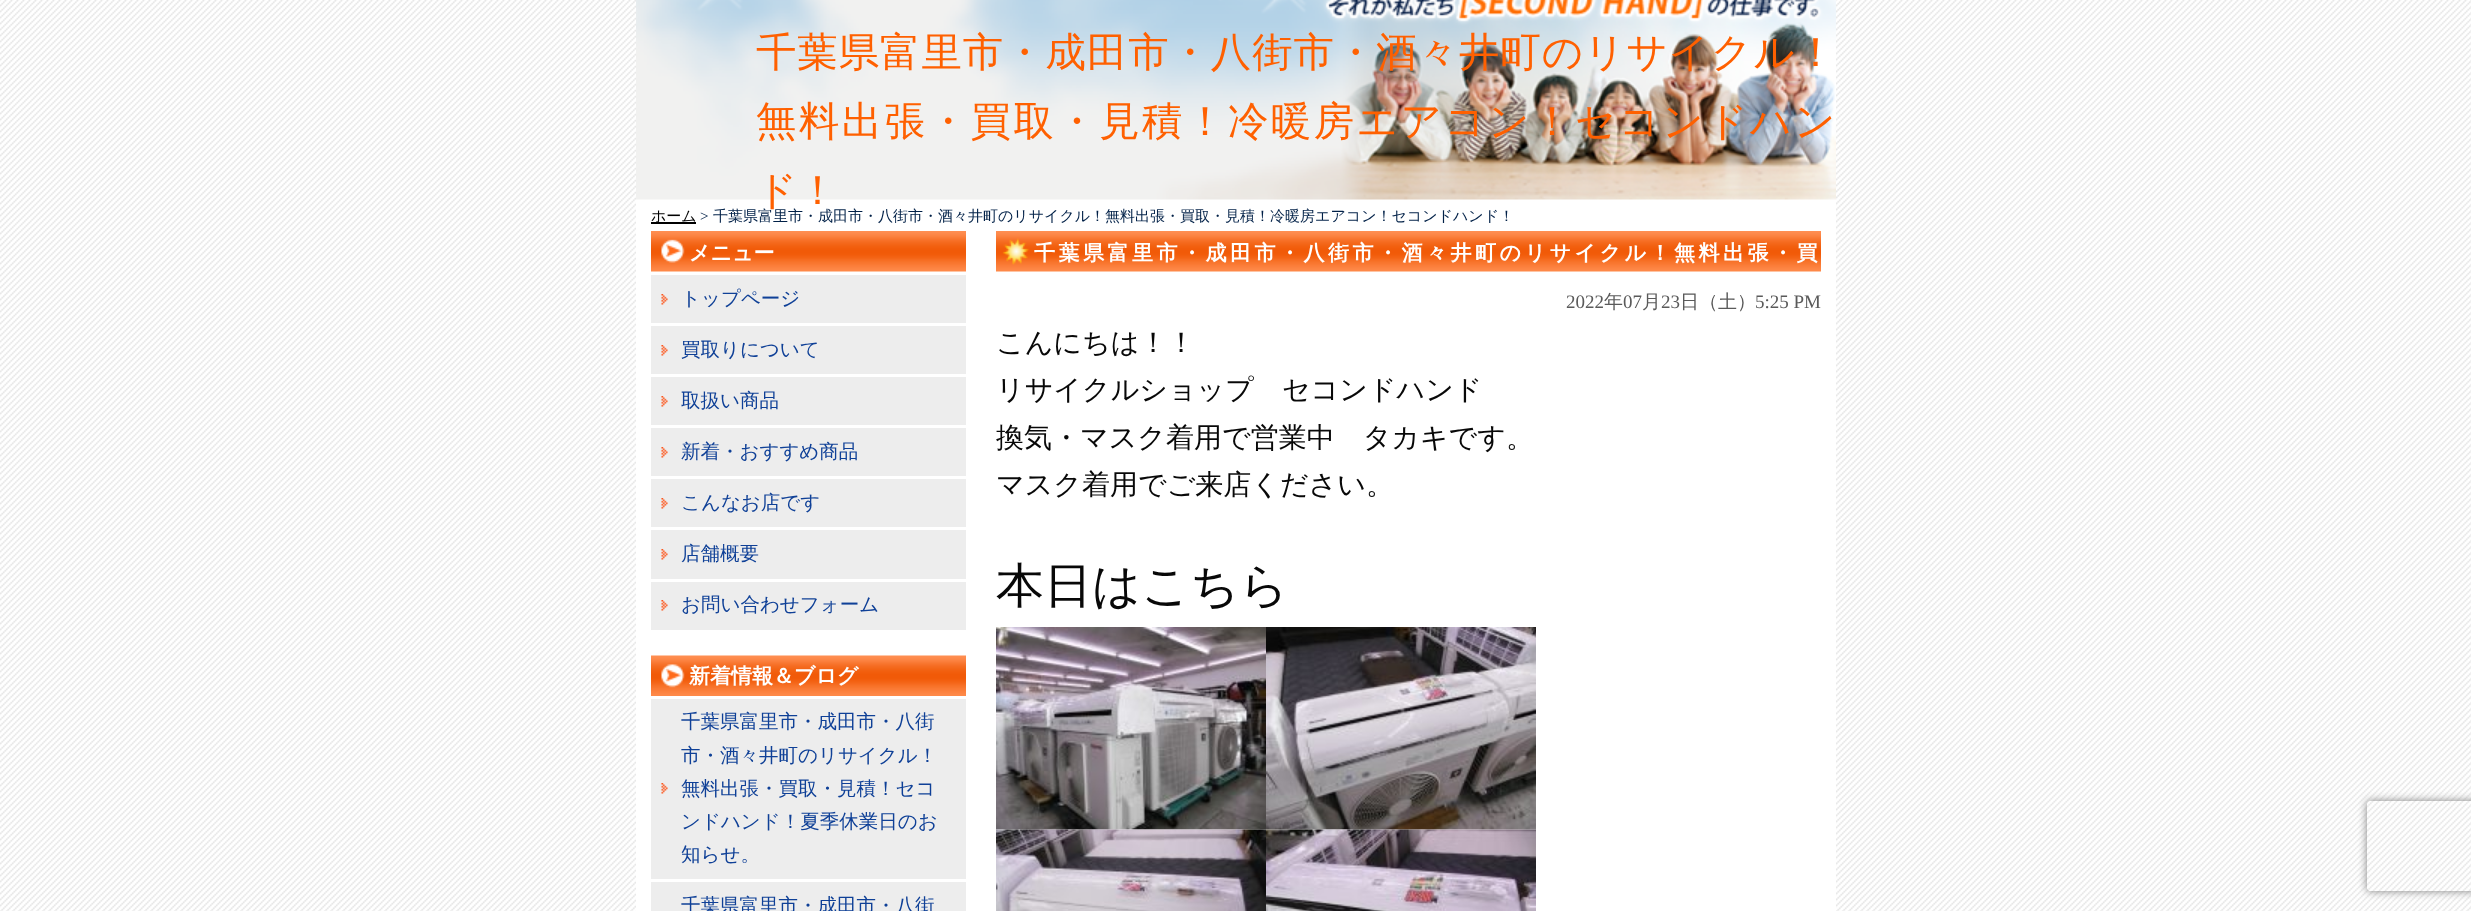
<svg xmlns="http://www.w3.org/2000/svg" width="2471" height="911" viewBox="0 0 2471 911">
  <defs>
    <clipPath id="clip1"><path d="M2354 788H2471V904H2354ZM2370 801H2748C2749.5 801 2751 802.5 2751 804V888C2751 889.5 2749.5 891 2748 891H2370C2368.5 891 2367 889.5 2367 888V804C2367 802.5 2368.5 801 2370 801Z" clip-rule="evenodd"/></clipPath>
  </defs>
  <rect width="100%" height="100%" fill="#fff"/>
  <image x="0" y="0" width="2471" height="911" href="img/1.png"/>
  <path d="M636 199h1200v712H636z" fill="#fff"/>
  <image x="636" y="0" width="1200" height="200" href="img/2.png"/>
  <path d="M651 222h45v2H651z" fill="#000"/>
  <image x="651" y="231" width="315" height="41" href="img/3.png"/>
  <path d="M651 275h315v355H651z" fill="#ededed"/>
  <image x="661" y="294" width="7" height="11" href="img/4.png"/>
  <path d="M651 323h315v3H651z" fill="#fff"/>
  <image x="661" y="345" width="7" height="11" href="img/4.png"/>
  <path d="M651 374h315v3H651z" fill="#fff"/>
  <image x="661" y="396" width="7" height="11" href="img/4.png"/>
  <path d="M651 425h315v3H651z" fill="#fff"/>
  <image x="661" y="447" width="7" height="11" href="img/4.png"/>
  <path d="M651 476h315v3H651z" fill="#fff"/>
  <image x="661" y="498" width="7" height="11" href="img/4.png"/>
  <path d="M651 527h315v3H651z" fill="#fff"/>
  <image x="661" y="549" width="7" height="11" href="img/4.png"/>
  <path d="M651 579h315v3H651z" fill="#fff"/>
  <image x="661" y="600" width="7" height="11" href="img/4.png"/>
  <image x="651" y="655" width="315" height="41" href="img/5.png"/>
  <path d="M651 699h315v212H651z" fill="#ededed"/>
  <image x="661" y="783" width="7" height="11" href="img/4.png"/>
  <path d="M651 879h315v3H651z" fill="#fff"/>
  <image x="996" y="231" width="825" height="41" href="img/6.png"/>
  <image x="996" y="627" width="270" height="203" href="img/7.png"/>
  <image x="1266" y="627" width="270" height="203" href="img/8.png"/>
  <image x="996" y="829" width="270" height="82" href="img/9.png"/>
  <image x="1266" y="829" width="270" height="82" href="img/10.png"/>
  <g clip-path="url(#clip1)">
    <rect x="2367" y="801" width="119" height="90" rx="3" fill="#808080" filter="blur(4px)"/>
  </g>
  <text x="756" y="66" font-family="WenQuanYi Zen Hei" font-size="40.5" font-weight="500" letter-spacing="0.85" fill="#ff6000">千葉県富里市・成田市・八街市・酒々井町のリサイクル！</text>
  <text x="756" y="135" font-family="WenQuanYi Zen Hei" font-size="40.5" font-weight="500" letter-spacing="2.4" fill="#ff6000">無料出張・買取・見積！冷暖房エアコン！セコンドハン</text>
  <text x="756" y="204" font-family="WenQuanYi Zen Hei" font-size="40.5" font-weight="500" fill="#ff6000">ド！</text>
  <text x="651" y="221" font-family="WenQuanYi Zen Hei" font-size="15" font-weight="500" fill="#000">ホーム</text>
  <text x="700" y="221" font-family="Liberation Serif" font-size="15" fill="#012047">&gt;</text>
  <text x="713" y="221" font-family="WenQuanYi Zen Hei" font-size="15" font-weight="500" fill="#012047">千葉県富里市・成田市・八街市・酒々井町のリサイクル！無料出張・買取・見積！冷暖房エアコン！セコンドハンド！</text>
  <text x="689" y="260" font-family="WenQuanYi Zen Hei" font-size="21" font-weight="bold" fill="#fff">メニュー</text>
  <g font-family="WenQuanYi Zen Hei" font-size="19.5" font-weight="500" fill="#0f4097">
    <text x="681" y="305">トップページ</text>
    <text x="681" y="356">買取りについて</text>
    <text x="681" y="407">取扱い商品</text>
    <text x="681" y="458">新着・おすすめ商品</text>
    <text x="681" y="509">こんなお店です</text>
    <text x="681" y="560">店舗概要</text>
    <text x="681" y="611">お問い合わせフォーム</text>
  </g>
  <text x="689" y="683" font-family="WenQuanYi Zen Hei" font-size="21" font-weight="bold" fill="#fff">新着情報＆ブログ</text>
  <g font-family="WenQuanYi Zen Hei" font-size="19.5" font-weight="500" fill="#0f4097">
    <text x="681" y="728">千葉県富里市・成田市・八街</text>
    <text x="681" y="762">市・酒々井町のリサイクル！</text>
    <text x="681" y="795">無料出張・買取・見積！セコ</text>
    <text x="681" y="828">ンドハンド！夏季休業日のお</text>
    <text x="681" y="861">知らせ。</text>
    <text x="681" y="912">千葉県富里市・成田市・八街</text>
  </g>
  <text x="1034" y="260" font-family="WenQuanYi Zen Hei" font-size="21" font-weight="bold" letter-spacing="3.5" fill="#fff">千葉県富里市・成田市・八街市・酒々井町のリサイクル！無料出張・買</text>
  <text x="1566" y="308" font-family="Liberation Serif" font-size="19" fill="#5a5a5a">2022</text>
  <text x="1604" y="308" font-family="WenQuanYi Zen Hei" font-size="19" font-weight="500" fill="#5a5a5a">年</text>
  <text x="1623" y="308" font-family="Liberation Serif" font-size="19" fill="#5a5a5a">07</text>
  <text x="1642" y="308" font-family="WenQuanYi Zen Hei" font-size="19" font-weight="500" fill="#5a5a5a">月</text>
  <text x="1661" y="308" font-family="Liberation Serif" font-size="19" fill="#5a5a5a">23</text>
  <text x="1680" y="308" font-family="WenQuanYi Zen Hei" font-size="19" font-weight="500" fill="#5a5a5a">日（土）</text>
  <text x="1755" y="308" font-family="Liberation Serif" font-size="19" fill="#5a5a5a">5:25 PM</text>
  <g font-family="WenQuanYi Zen Hei" font-size="28" font-weight="500" fill="#080808">
    <text x="996" y="352">こんにちは！！</text>
    <text x="996" y="399">リサイクルショップ　セコンドハンド</text>
    <text x="996" y="447">換気・マスク着用で営業中　タカキです。</text>
    <text x="996" y="494">マスク着用でご来店ください。</text>
  </g>
  <text x="996" y="602" font-family="WenQuanYi Zen Hei" font-size="48" font-weight="500" fill="#080808">本日はこちら</text>
</svg>
